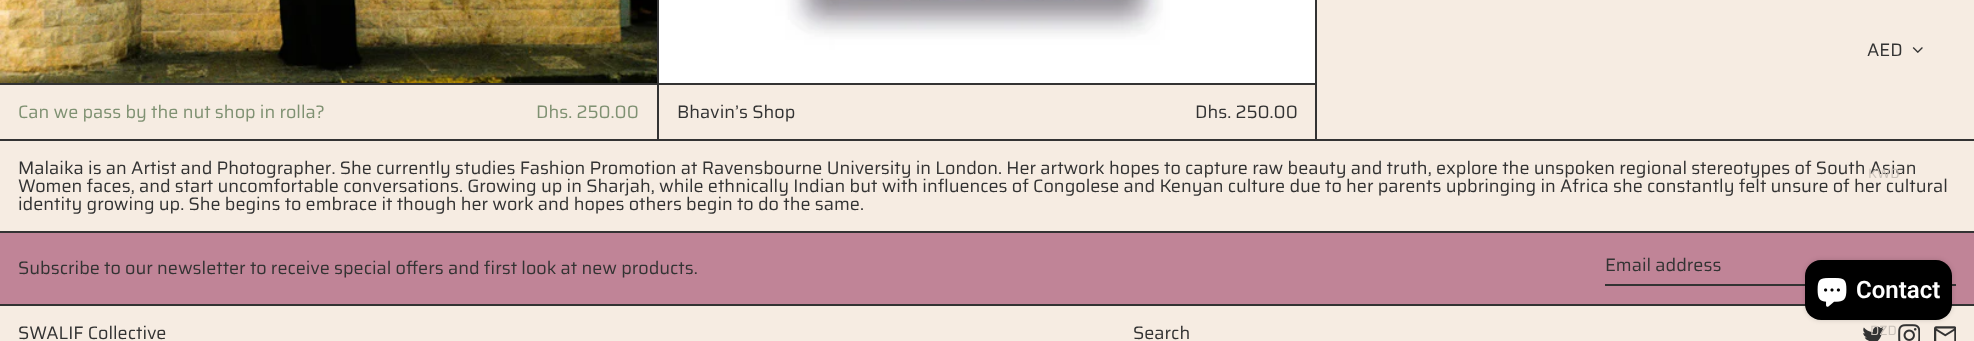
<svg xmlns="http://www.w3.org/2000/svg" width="1974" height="341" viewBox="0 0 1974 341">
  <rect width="100%" height="100%" fill="#f6ece2"/>
  <image x="1912" y="47" width="11" height="6" href="img/1.png"/>
  <path d="M657 0h660v139H657z" fill="#333"/>
  <path d="M0 83h657v2H0z" fill="#333"/>
  <image x="0" y="0" width="657" height="83" href="img/2.png"/>
  <path d="M659 85h656v54H659z" fill="#f6ece2"/>
  <image x="659" y="0" width="656" height="83" href="img/3.png"/>
  <path d="M0 139h1974v2H0z" fill="#333"/>
  <path d="M0 233h1974v71H0z" fill="#c08497"/>
  <path d="M0 231h1974v2H0z" fill="#333"/>
  <path d="M1605 284h200v2H1605z" fill="#333"/>
  <path d="M1952 284h4v2H1952z" fill="#333"/>
  <path d="M0 304h1974v2H0z" fill="#333"/>
  <image x="1863" y="326" width="21" height="15" href="img/4.png"/>
  <image x="1898" y="324" width="22" height="17" href="img/5.png"/>
  <image x="1934" y="326" width="22" height="15" href="img/6.png"/>
  <rect x="1805" y="260" width="147" height="60" rx="16" fill="#00000026" filter="blur(2.5px)"/>
  <rect x="1805" y="260" width="147" height="60" rx="16" fill="#000"/>
  <image x="1817" y="278" width="30" height="29" href="img/7.png"/>
  <text x="1867" y="56" font-family="Saira" font-size="18" fill="#333">AED</text>
  <text x="1870" y="335" font-family="Saira" font-size="13.5" fill="#cac2ba">DZD</text>
  <g font-family="Saira" font-size="18" fill="#7f9172">
    <text x="18" y="118">Can we pass by the nut shop in rolla?</text>
    <text x="536" y="118">Dhs. 250.00</text>
  </g>
  <g font-family="Saira" font-size="18" fill="#333">
    <text x="677" y="118">Bhavin’s Shop</text>
    <text x="1195" y="118">Dhs. 250.00</text>
    <text x="18" y="174">Malaika is an Artist and Photographer. She currently studies Fashion Promotion at Ravensbourne University in London. Her artwork hopes to capture raw beauty and truth, explore the unspoken regional stereotypes of South Asian</text>
  </g>
  <text x="1868" y="178" font-family="Saira" font-size="13.5" fill="#cac2ba">KWD</text>
  <g font-family="Saira" font-size="18" fill="#333">
    <text x="18" y="192">Women faces, and start uncomfortable conversations. Growing up in Sharjah, while ethnically Indian but with influences of Congolese and Kenyan culture due to her parents upbringing in Africa she constantly felt unsure of her cultural</text>
    <text x="18" y="210">identity growing up. She begins to embrace it though her work and hopes others begin to do the same.</text>
    <text x="18" y="274">Subscribe to our newsletter to receive special offers and first look at new products.</text>
    <text x="1605" y="271">Email address</text>
    <text x="18" y="339">SWALIF Collective</text>
    <text x="1133" y="339">Search</text>
  </g>
  <text x="1856" y="298" font-family="Roboto" font-size="24" font-weight="600" fill="#fff">Contact</text>
</svg>
